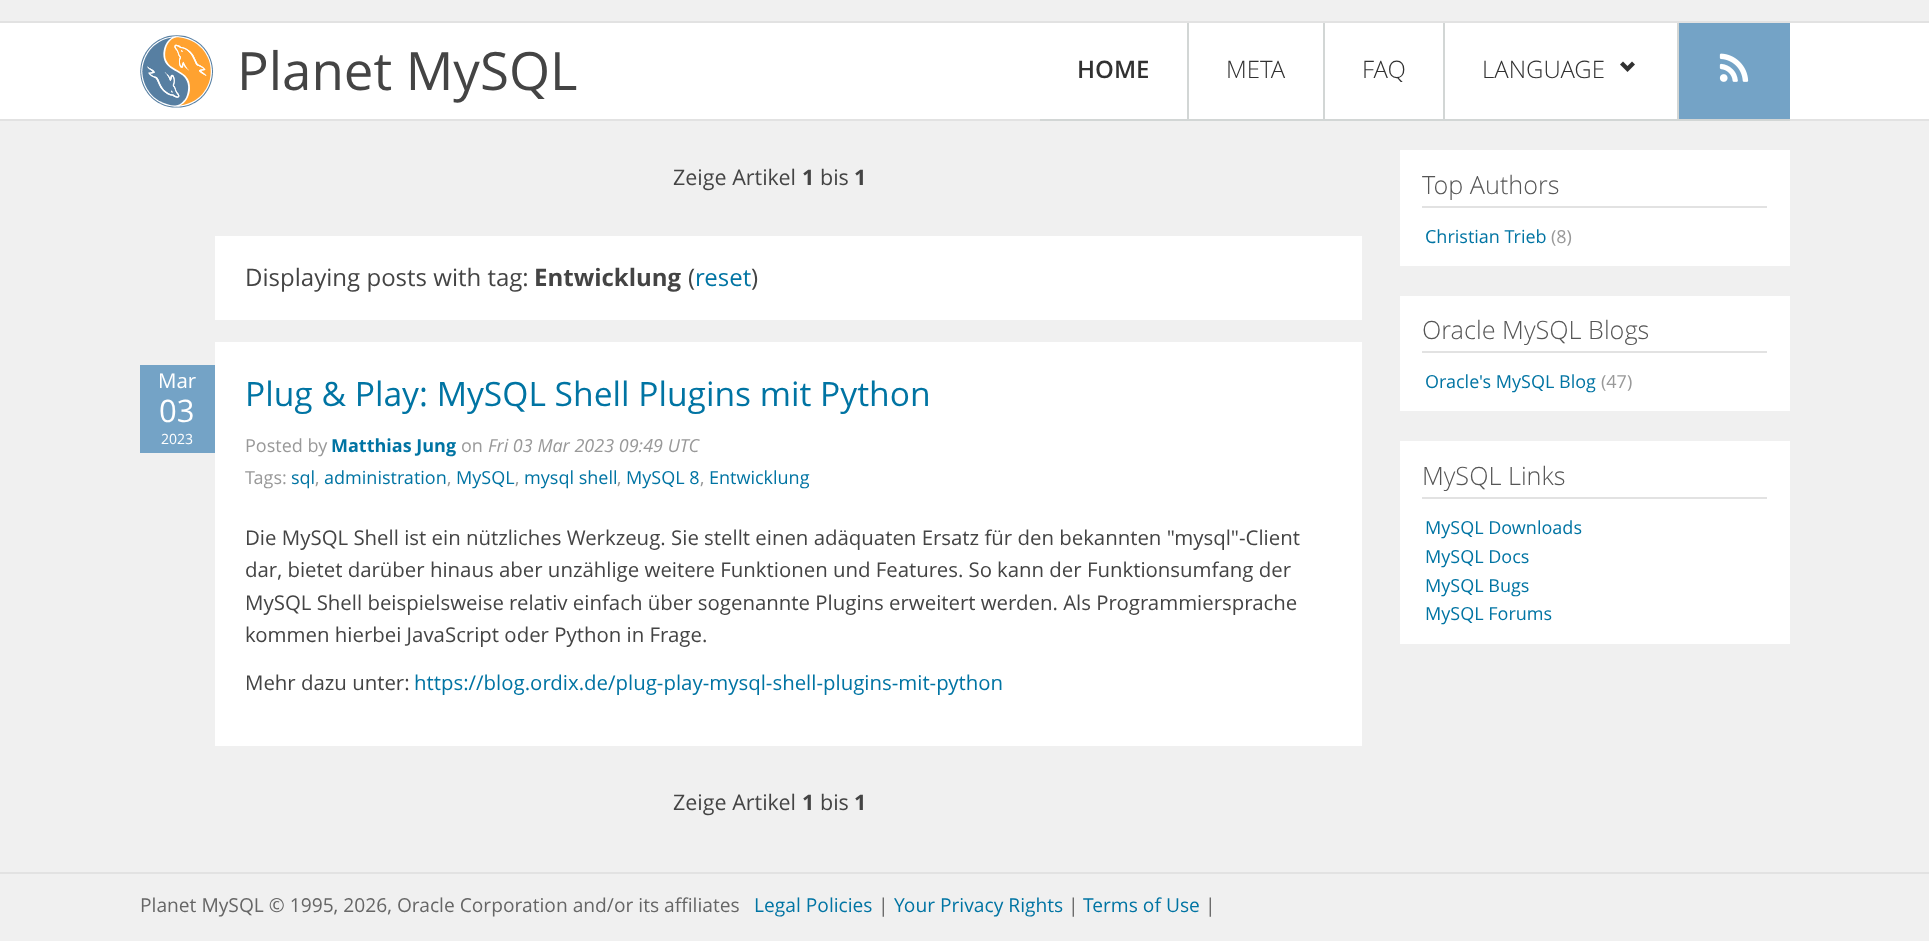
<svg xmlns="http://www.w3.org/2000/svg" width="1929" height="941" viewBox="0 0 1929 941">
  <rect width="100%" height="100%" fill="#f0f0f0"/>
  <path d="M0 21h1929v2H0z" fill="#e2e2e2"/>
  <path d="M0 23h1929v96H0z" fill="#fff"/>
  <path d="M0 119h1929v2H0z" fill="#e2e2e2"/>
  <image x="140" y="35" width="73" height="73" href="img/1.png"/>
  <path d="M1040 119h750v2H1040z" fill="#d2d6d5"/>
  <path d="M1187 23h2v97H1187z" fill="#d2d6d5"/>
  <path d="M1323 23h2v97H1323z" fill="#d2d6d5"/>
  <path d="M1443 23h2v97H1443z" fill="#d2d6d5"/>
  <image x="1620" y="61" width="15" height="11" href="img/2.png"/>
  <path d="M1677 23h2v97H1677z" fill="#d2d6d5"/>
  <path d="M1679 23h111v96H1679z" fill="#74a3c6"/>
  <image x="1719" y="53" width="30" height="29" href="img/3.png"/>
  <path d="M215 236h1147v84H215z" fill="#fff"/>
  <path d="M215 342h1147v404H215z" fill="#fff"/>
  <path d="M140 365h75v88H140z" fill="#74a3c6"/>
  <path d="M1400 150h390v116H1400z" fill="#fff"/>
  <path d="M1422 206h345v2H1422z" fill="#e2e2e2"/>
  <path d="M1400 296h390v115H1400z" fill="#fff"/>
  <path d="M1422 351h345v2H1422z" fill="#e2e2e2"/>
  <path d="M1400 441h390v203H1400z" fill="#fff"/>
  <path d="M1422 497h345v2H1422z" fill="#e2e2e2"/>
  <path d="M0 872h1929v2H0z" fill="#e2e2e2"/>
  <text x="237" y="90" font-family="Open Sans" font-size="52.75" fill="#444">Planet MySQL</text>
  <text x="1077" y="78" font-family="Open Sans" font-size="24" font-weight="600" fill="#313131">HOME</text>
  <g font-family="Open Sans" font-size="24" font-weight="300" fill="#313131">
    <text x="1226" y="78">META</text>
    <text x="1362" y="78">FAQ</text>
    <text x="1482" y="78">LANGUAGE</text>
  </g>
  <text x="673" y="185" font-family="Open Sans" font-size="21.5" fill="#444">Zeige Artikel</text>
  <text x="802" y="185" font-family="Open Sans" font-size="21.5" font-weight="bold" fill="#444">1</text>
  <text x="820" y="185" font-family="Open Sans" font-size="21.5" fill="#444">bis</text>
  <text x="854" y="185" font-family="Open Sans" font-size="21.5" font-weight="bold" fill="#444">1</text>
  <text x="245" y="286" font-family="Open Sans" font-size="24" fill="#444">Displaying posts with tag:</text>
  <text x="534" y="286" font-family="Open Sans" font-size="24" font-weight="bold" fill="#444">Entwicklung</text>
  <text x="688" y="286" font-family="Open Sans" font-size="24" fill="#444">(</text>
  <text x="695" y="286" font-family="Open Sans" font-size="24" fill="#0074a3">reset</text>
  <text x="751" y="286" font-family="Open Sans" font-size="24" fill="#444">)</text>
  <text x="158" y="388" font-family="Open Sans" font-size="20.4" fill="#fff">Mar</text>
  <text x="159" y="422" font-family="Open Sans" font-size="31" fill="#fff">03</text>
  <text x="161" y="444" font-family="Open Sans" font-size="14" fill="#fff">2023</text>
  <text x="245" y="406" font-family="Open Sans" font-size="33.6" fill="#0074a3">Plug &amp; Play: MySQL Shell Plugins mit Python</text>
  <text x="245" y="452" font-family="Open Sans" font-size="18" fill="#999">Posted by</text>
  <text x="331" y="452" font-family="Open Sans" font-size="18" font-weight="bold" fill="#0074a3">Matthias Jung</text>
  <text x="461" y="452" font-family="Open Sans" font-size="18" fill="#999">on</text>
  <text x="488" y="452" font-family="Open Sans" font-size="18" font-style="italic" fill="#999">Fri 03 Mar 2023 09:49 UTC</text>
  <text x="245" y="484" font-family="Open Sans" font-size="18" fill="#999">Tags:</text>
  <text x="291" y="484" font-family="Open Sans" font-size="18" fill="#0074a3">sql</text>
  <text x="315" y="484" font-family="Open Sans" font-size="18" fill="#999">,</text>
  <text x="324" y="484" font-family="Open Sans" font-size="18" fill="#0074a3">administration</text>
  <text x="447" y="484" font-family="Open Sans" font-size="18" fill="#999">,</text>
  <text x="456" y="484" font-family="Open Sans" font-size="18" fill="#0074a3">MySQL</text>
  <text x="515" y="484" font-family="Open Sans" font-size="18" fill="#999">,</text>
  <text x="524" y="484" font-family="Open Sans" font-size="18" fill="#0074a3">mysql shell</text>
  <text x="617" y="484" font-family="Open Sans" font-size="18" fill="#999">,</text>
  <text x="626" y="484" font-family="Open Sans" font-size="18" fill="#0074a3">MySQL 8</text>
  <text x="700" y="484" font-family="Open Sans" font-size="18" fill="#999">,</text>
  <text x="709" y="484" font-family="Open Sans" font-size="18" fill="#0074a3">Entwicklung</text>
  <g font-family="Open Sans" font-size="20.4" fill="#444">
    <text x="245" y="545">Die MySQL Shell ist ein nützliches Werkzeug. Sie stellt einen adäquaten Ersatz für den bekannten "mysql"-Client</text>
    <text x="245" y="577">dar, bietet darüber hinaus aber unzählige weitere Funktionen und Features. So</text>
    <text x="997" y="577">kann der Funktionsumfang der</text>
    <text x="245" y="610">MySQL Shell beispielsweise relativ einfach über sogenannte Plugins erweitert werden. Als Programmiersprache</text>
    <text x="245" y="642">kommen hierbei JavaScript oder Python in Frage.</text>
    <text x="245" y="690">Mehr dazu unter:</text>
  </g>
  <text x="414" y="690" font-family="Open Sans" font-size="20.4" fill="#0074a3">https://blog.ordix.de/plug-play-mysql-shell-plugins-mit-python</text>
  <text x="673" y="810" font-family="Open Sans" font-size="21.5" fill="#444">Zeige Artikel</text>
  <text x="802" y="810" font-family="Open Sans" font-size="21.5" font-weight="bold" fill="#444">1</text>
  <text x="820" y="810" font-family="Open Sans" font-size="21.5" fill="#444">bis</text>
  <text x="854" y="810" font-family="Open Sans" font-size="21.5" font-weight="bold" fill="#444">1</text>
  <text x="1422" y="194" font-family="Open Sans" font-size="25.25" font-weight="300" fill="#555">Top Authors</text>
  <text x="1425" y="243" font-family="Open Sans" font-size="18" fill="#0074a3">Christian Trieb</text>
  <text x="1551" y="243" font-family="Open Sans" font-size="18" fill="#999">(8)</text>
  <text x="1422" y="339" font-family="Open Sans" font-size="25.25" font-weight="300" fill="#555">Oracle MySQL Blogs</text>
  <text x="1425" y="388" font-family="Open Sans" font-size="18" fill="#0074a3">Oracle's MySQL Blog</text>
  <text x="1601" y="388" font-family="Open Sans" font-size="18" fill="#999">(47)</text>
  <text x="1422" y="485" font-family="Open Sans" font-size="25.25" font-weight="300" fill="#555">MySQL Links</text>
  <g font-family="Open Sans" font-size="18" fill="#0074a3">
    <text x="1425" y="534">MySQL Downloads</text>
    <text x="1425" y="563">MySQL Docs</text>
    <text x="1425" y="592">MySQL Bugs</text>
    <text x="1425" y="620">MySQL Forums</text>
  </g>
  <text x="140" y="912" font-family="Open Sans" font-size="19.2" fill="#666">Planet MySQL © 1995, 2026, Oracle Corporation and/or its affiliates</text>
  <text x="754" y="912" font-family="Open Sans" font-size="19.2" fill="#0074a3">Legal Policies</text>
  <text x="878" y="912" font-family="Open Sans" font-size="19.2" fill="#666">|</text>
  <text x="894" y="912" font-family="Open Sans" font-size="19.2" fill="#0074a3">Your Privacy Rights</text>
  <text x="1068" y="912" font-family="Open Sans" font-size="19.2" fill="#666">|</text>
  <text x="1083" y="912" font-family="Open Sans" font-size="19.2" fill="#0074a3">Terms of Use</text>
  <text x="1205" y="912" font-family="Open Sans" font-size="19.2" fill="#666">|</text>
</svg>
